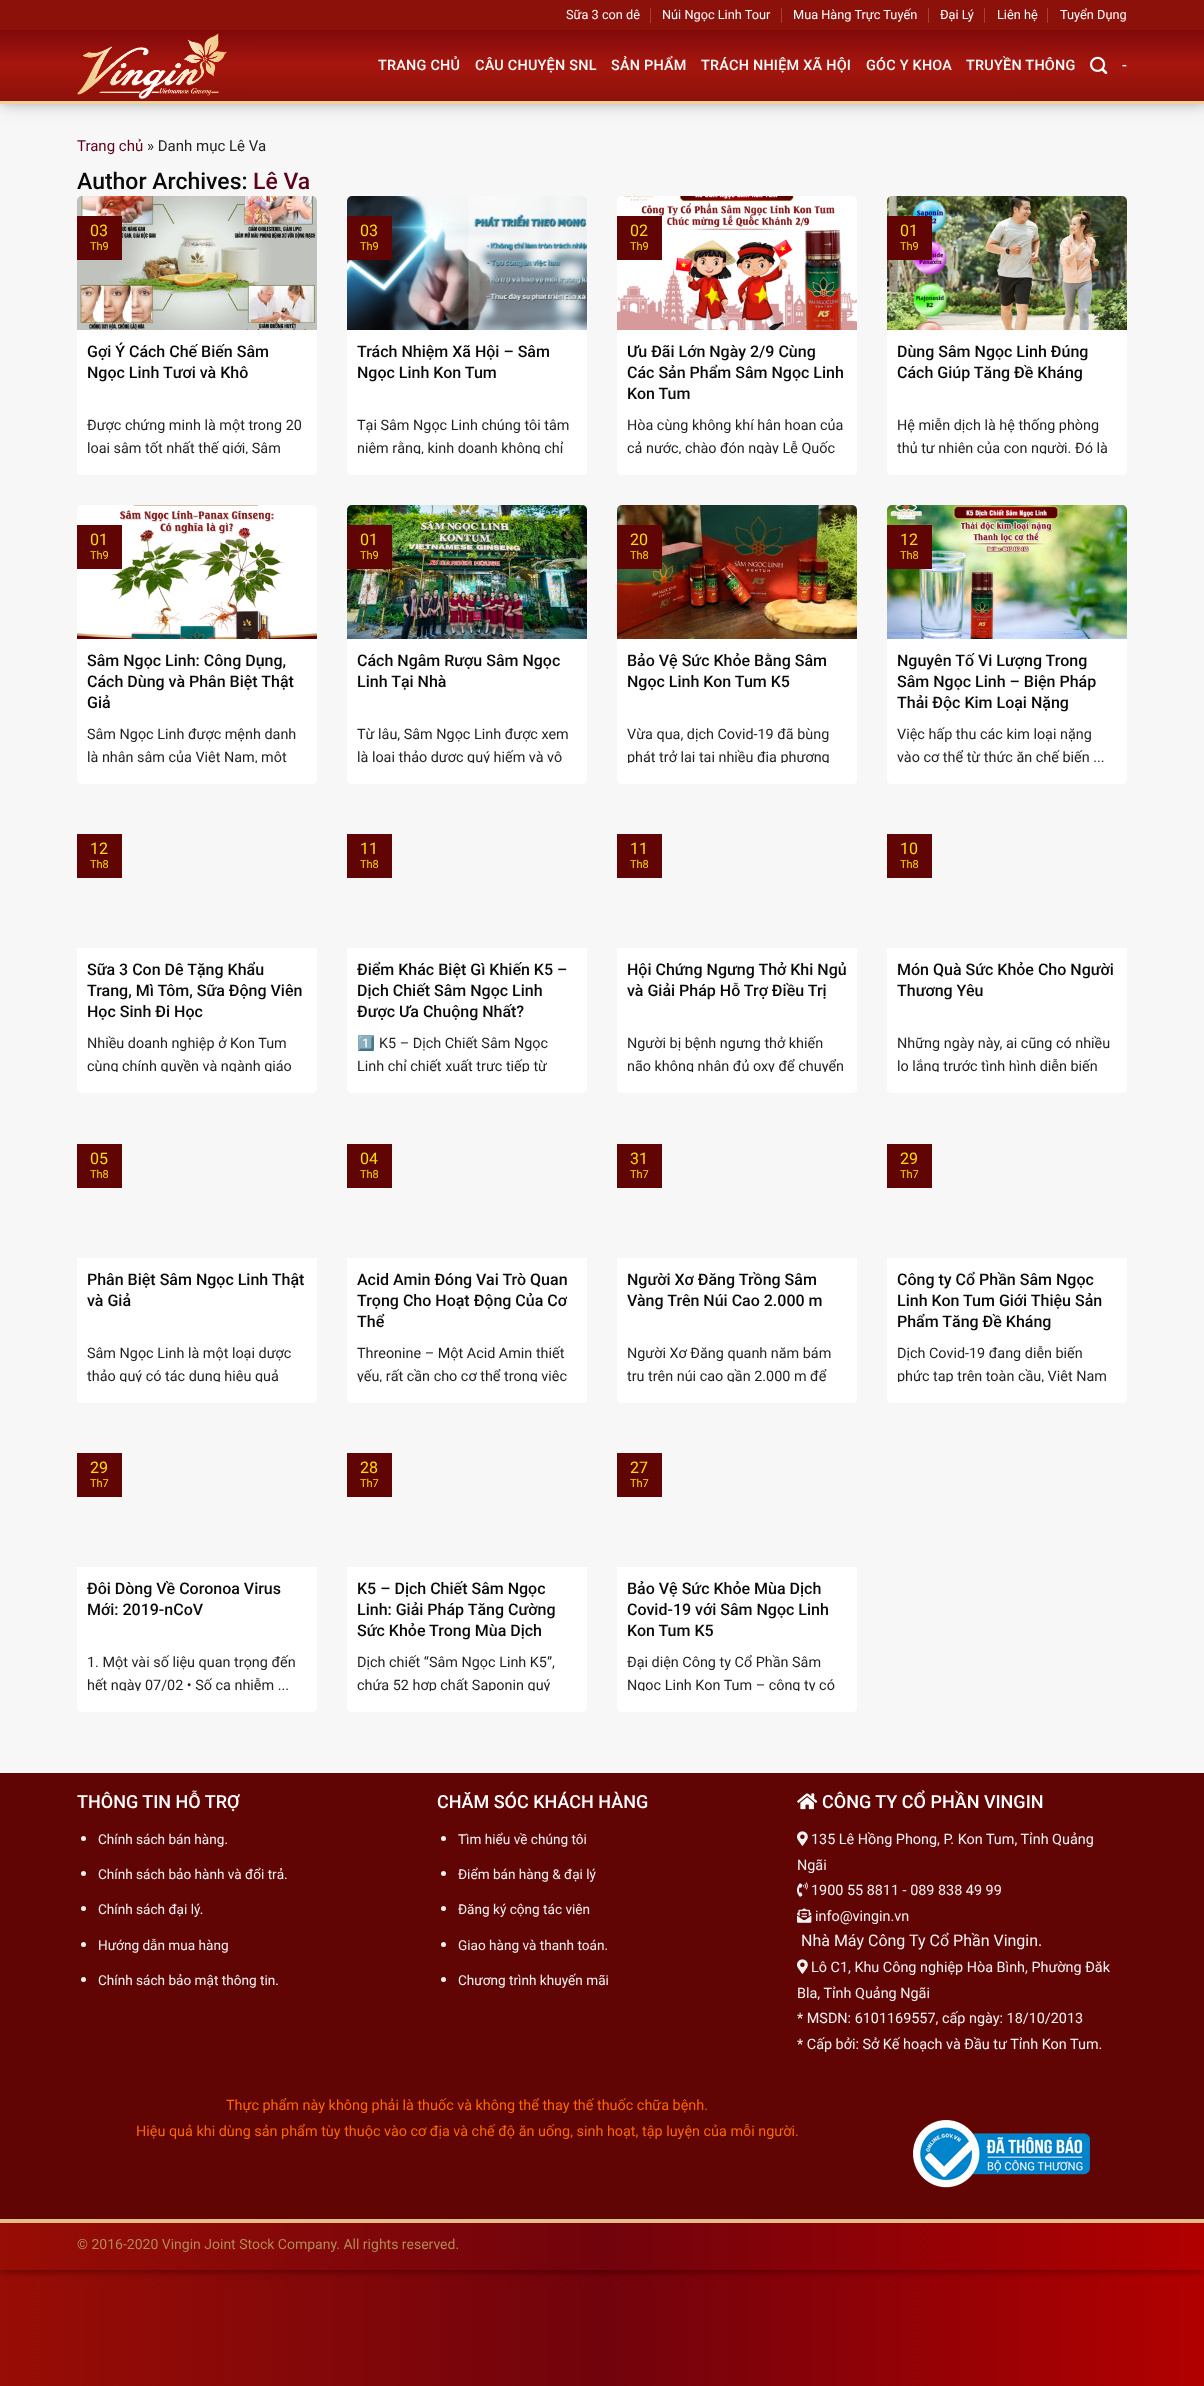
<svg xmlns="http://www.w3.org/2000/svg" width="1204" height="2386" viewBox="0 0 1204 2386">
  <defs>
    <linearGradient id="g1" gradientUnits="userSpaceOnUse" x1="0" y1="1193" x2="1204" y2="1193"><stop offset="0" stop-color="#980d05"/><stop offset="0.5" stop-color="#71030c"/><stop offset="1" stop-color="#b20000"/></linearGradient>
    <linearGradient id="g2" gradientUnits="userSpaceOnUse" x1="602" y1="101" x2="602" y2="30"><stop offset="0" stop-color="#8c110a"/><stop offset="0.5" stop-color="#a7160e"/><stop offset="1" stop-color="#800909"/></linearGradient>
    <linearGradient id="g3" gradientUnits="userSpaceOnUse" x1="0" y1="2247" x2="1204" y2="2247"><stop offset="0" stop-color="#980d05"/><stop offset="0.5" stop-color="#71030c"/><stop offset="1" stop-color="#b20000"/></linearGradient>
    <clipPath id="clip1"><path d="M87 414h220v40H87z"/></clipPath>
    <clipPath id="clip2"><path d="M357 414h220v40H357z"/></clipPath>
    <clipPath id="clip3"><path d="M627 414h220v40H627z"/></clipPath>
    <clipPath id="clip4"><path d="M897 414h220v40H897z"/></clipPath>
    <clipPath id="clip5"><path d="M87 723h220v40H87z"/></clipPath>
    <clipPath id="clip6"><path d="M357 723h220v40H357z"/></clipPath>
    <clipPath id="clip7"><path d="M627 723h220v40H627z"/></clipPath>
    <clipPath id="clip8"><path d="M87 1032h220v40H87z"/></clipPath>
    <clipPath id="clip9"><path d="M357 1032h220v40H357z"/></clipPath>
    <clipPath id="clip10"><path d="M627 1032h220v40H627z"/></clipPath>
    <clipPath id="clip11"><path d="M897 1032h220v40H897z"/></clipPath>
    <clipPath id="clip12"><path d="M87 1342h220v40H87z"/></clipPath>
    <clipPath id="clip13"><path d="M357 1342h220v40H357z"/></clipPath>
    <clipPath id="clip14"><path d="M627 1342h220v40H627z"/></clipPath>
    <clipPath id="clip15"><path d="M897 1342h220v40H897z"/></clipPath>
    <clipPath id="clip16"><path d="M87 1651h220v40H87z"/></clipPath>
    <clipPath id="clip17"><path d="M357 1651h220v40H357z"/></clipPath>
    <clipPath id="clip18"><path d="M627 1651h220v40H627z"/></clipPath>
  </defs>
  <rect width="100%" height="100%" fill="#fff"/>
  <path d="M0 2270h1204v116H0z" fill="url(#g1)"/>
  <path d="M0 3h1204v2270H0z" fill="#0000003b" filter="blur(3px)"/>
  <path d="M4 7h1196v2262H4z" fill="#00000029" filter="blur(3px)"/>
  <path d="M0 104h1204v1669H0z" fill="#f7f7f7"/>
  <path d="M2 2h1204v104H2z" fill="#0000001f" filter="blur(10px)"/>
  <path d="M1 1h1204v104H1z" fill="#00000026" filter="blur(5px)"/>
  <path d="M0 0h1204v30H0z" fill="#8c110a"/>
  <path d="M650 8h1v15H650z" fill="#a3413b"/>
  <path d="M781 8h1v15H781z" fill="#a3413b"/>
  <path d="M928 8h1v15H928z" fill="#a3413b"/>
  <path d="M984 8h1v15H984z" fill="#a3413b"/>
  <path d="M1047 8h1v15H1047z" fill="#a3413b"/>
  <path d="M0 30h1204v71H0z" fill="url(#g2)"/>
  <path d="M0 101h1204v3H0z" fill="#f3d098"/>
  <image x="77" y="33" width="150" height="66" href="img/1.png"/>
  <image x="1090" y="56" width="18" height="18" href="img/2.png"/>
  <image x="77" y="196" width="240" height="134" href="img/3.png"/>
  <path d="M77 216h45v44H77z" fill="#610404"/>
  <path d="M77 330H317V470C317 473 315 475 312 475H82C79 475 77 473 77 470Z" fill="#fff"/>
  <image x="347" y="196" width="240" height="134" href="img/4.png"/>
  <path d="M347 216h45v44H347z" fill="#610404"/>
  <path d="M347 330H587V470C587 473 585 475 582 475H352C349 475 347 473 347 470Z" fill="#fff"/>
  <image x="617" y="196" width="240" height="134" href="img/5.png"/>
  <path d="M617 216h45v44H617z" fill="#610404"/>
  <path d="M617 330H857V470C857 473 855 475 852 475H622C619 475 617 473 617 470Z" fill="#fff"/>
  <image x="887" y="196" width="240" height="134" href="img/6.png"/>
  <path d="M887 216h45v44H887z" fill="#610404"/>
  <path d="M887 330H1127V470C1127 473 1125 475 1122 475H892C889 475 887 473 887 470Z" fill="#fff"/>
  <image x="77" y="505" width="240" height="134" href="img/7.png"/>
  <path d="M77 525h45v44H77z" fill="#610404"/>
  <path d="M77 639H317V779C317 782 315 784 312 784H82C79 784 77 782 77 779Z" fill="#fff"/>
  <image x="347" y="505" width="240" height="134" href="img/8.png"/>
  <path d="M347 525h45v44H347z" fill="#610404"/>
  <path d="M347 639H587V779C587 782 585 784 582 784H352C349 784 347 782 347 779Z" fill="#fff"/>
  <image x="617" y="505" width="240" height="134" href="img/9.png"/>
  <path d="M617 525h45v44H617z" fill="#610404"/>
  <path d="M617 639H857V779C857 782 855 784 852 784H622C619 784 617 782 617 779Z" fill="#fff"/>
  <image x="887" y="505" width="240" height="134" href="img/10.png"/>
  <path d="M887 525h45v44H887z" fill="#610404"/>
  <path d="M887 639H1127V779C1127 782 1125 784 1122 784H892C889 784 887 782 887 779Z" fill="#fff"/>
  <path d="M77 834h45v44H77z" fill="#610404"/>
  <path d="M77 948H317V1088C317 1091 315 1093 312 1093H82C79 1093 77 1091 77 1088Z" fill="#fff"/>
  <path d="M347 834h45v44H347z" fill="#610404"/>
  <path d="M347 948H587V1088C587 1091 585 1093 582 1093H352C349 1093 347 1091 347 1088Z" fill="#fff"/>
  <path d="M617 834h45v44H617z" fill="#610404"/>
  <path d="M617 948H857V1088C857 1091 855 1093 852 1093H622C619 1093 617 1091 617 1088Z" fill="#fff"/>
  <path d="M887 834h45v44H887z" fill="#610404"/>
  <path d="M887 948H1127V1088C1127 1091 1125 1093 1122 1093H892C889 1093 887 1091 887 1088Z" fill="#fff"/>
  <path d="M77 1144h45v44H77z" fill="#610404"/>
  <path d="M77 1258H317V1398C317 1401 315 1403 312 1403H82C79 1403 77 1401 77 1398Z" fill="#fff"/>
  <path d="M347 1144h45v44H347z" fill="#610404"/>
  <path d="M347 1258H587V1398C587 1401 585 1403 582 1403H352C349 1403 347 1401 347 1398Z" fill="#fff"/>
  <path d="M617 1144h45v44H617z" fill="#610404"/>
  <path d="M617 1258H857V1398C857 1401 855 1403 852 1403H622C619 1403 617 1401 617 1398Z" fill="#fff"/>
  <path d="M887 1144h45v44H887z" fill="#610404"/>
  <path d="M887 1258H1127V1398C1127 1401 1125 1403 1122 1403H892C889 1403 887 1401 887 1398Z" fill="#fff"/>
  <path d="M77 1453h45v44H77z" fill="#610404"/>
  <path d="M77 1567H317V1707C317 1710 315 1712 312 1712H82C79 1712 77 1710 77 1707Z" fill="#fff"/>
  <path d="M347 1453h45v44H347z" fill="#610404"/>
  <path d="M347 1567H587V1707C587 1710 585 1712 582 1712H352C349 1712 347 1710 347 1707Z" fill="#fff"/>
  <path d="M617 1453h45v44H617z" fill="#610404"/>
  <path d="M617 1567H857V1707C857 1710 855 1712 852 1712H622C619 1712 617 1710 617 1707Z" fill="#fff"/>
  <path d="M0 1773h1204v446H0z" fill="#610404"/>
  <circle cx="83.5" cy="1838.5" r="2.5" fill="#f1f1f1"/>
  <circle cx="83.5" cy="1873.5" r="2.5" fill="#f1f1f1"/>
  <circle cx="83.5" cy="1908.5" r="2.5" fill="#f1f1f1"/>
  <circle cx="83.5" cy="1944.5" r="2.5" fill="#f1f1f1"/>
  <circle cx="83.5" cy="1979.5" r="2.5" fill="#f1f1f1"/>
  <circle cx="443.5" cy="1838.5" r="2.5" fill="#f1f1f1"/>
  <circle cx="443.5" cy="1873.5" r="2.5" fill="#f1f1f1"/>
  <circle cx="443.5" cy="1908.5" r="2.5" fill="#f1f1f1"/>
  <circle cx="443.5" cy="1944.5" r="2.5" fill="#f1f1f1"/>
  <circle cx="443.5" cy="1979.5" r="2.5" fill="#f1f1f1"/>
  <image x="797" y="1793" width="21" height="17" href="img/11.png"/>
  <image x="797" y="1831" width="11" height="15" href="img/12.png"/>
  <image x="797" y="1882" width="11" height="15" href="img/13.png"/>
  <image x="797" y="1908" width="15" height="15" href="img/14.png"/>
  <image x="797" y="1959" width="11" height="15" href="img/12.png"/>
  <image x="913" y="2120" width="177" height="68" href="img/15.png"/>
  <path d="M0 2223h1204v47H0z" fill="url(#g3)"/>
  <path d="M0 2219h1204v4H0z" fill="#e6bd89"/>
  <g font-family="Roboto" font-size="12.75" fill="#fff">
    <text x="566" y="19">Sữa 3 con dê</text>
    <text x="662" y="19">Núi Ngọc Linh Tour</text>
    <text x="793" y="19">Mua Hàng Trực Tuyến</text>
    <text x="940" y="19">Đại Lý</text>
    <text x="997" y="19">Liên hệ</text>
    <text x="1060" y="19">Tuyển Dụng</text>
  </g>
  <g font-family="Roboto" font-size="14.4" font-weight="500" letter-spacing="0.25" fill="#fff">
    <text x="378" y="70">TRANG CHỦ</text>
    <text x="475" y="70">CÂU CHUYỆN SNL</text>
    <text x="611" y="70">SẢN PHẨM</text>
    <text x="701" y="70">TRÁCH NHIỆM XÃ HỘI</text>
    <text x="866" y="70">GÓC Y KHOA</text>
    <text x="966" y="70">TRUYỀN THÔNG</text>
    <text x="1122" y="70">-</text>
  </g>
  <text x="77" y="151" font-family="Roboto" font-size="15" fill="#5d021b">Trang chủ</text>
  <text x="147" y="151" font-family="Roboto" font-size="15" fill="#232323">» Danh mục Lê Va</text>
  <text x="77" y="189" font-family="Roboto" font-size="23" font-weight="500" fill="#0a0a0a">Author Archives:</text>
  <text x="253" y="189" font-family="Roboto" font-size="23" font-weight="500" fill="#5d021b">Lê Va</text>
  <text x="90" y="236" font-family="Roboto" font-size="16" fill="#fbdc09">03</text>
  <text x="90" y="250" font-family="Roboto" font-size="11" fill="#fbdc09">Th9</text>
  <g font-family="Roboto" font-size="16" font-weight="500" fill="#0a0a0a">
    <text x="87" y="357">Gợi Ý Cách Chế Biến Sâm</text>
    <text x="87" y="378">Ngọc Linh Tươi và Khô</text>
  </g>
  <text x="87" y="430" font-family="Roboto" font-size="14.4" fill="#232323">Được chứng minh là một trong 20</text>
  <g clip-path="url(#clip1)">
    <text x="87" y="453" font-family="Roboto" font-size="14.4" fill="#232323">loại sâm tốt nhất thế giới, Sâm</text>
  </g>
  <text x="360" y="236" font-family="Roboto" font-size="16" fill="#fbdc09">03</text>
  <text x="360" y="250" font-family="Roboto" font-size="11" fill="#fbdc09">Th9</text>
  <g font-family="Roboto" font-size="16" font-weight="500" fill="#0a0a0a">
    <text x="357" y="357">Trách Nhiệm Xã Hội – Sâm</text>
    <text x="357" y="378">Ngọc Linh Kon Tum</text>
  </g>
  <text x="357" y="430" font-family="Roboto" font-size="14.4" fill="#232323">Tại Sâm Ngọc Linh chúng tôi tâm</text>
  <g clip-path="url(#clip2)">
    <text x="357" y="453" font-family="Roboto" font-size="14.4" fill="#232323">niệm rằng, kinh doanh không chỉ</text>
  </g>
  <text x="630" y="236" font-family="Roboto" font-size="16" fill="#fbdc09">02</text>
  <text x="630" y="250" font-family="Roboto" font-size="11" fill="#fbdc09">Th9</text>
  <g font-family="Roboto" font-size="16" font-weight="500" fill="#0a0a0a">
    <text x="627" y="357">Ưu Đãi Lớn Ngày 2/9 Cùng</text>
    <text x="627" y="378">Các Sản Phẩm Sâm Ngọc Linh</text>
    <text x="627" y="399">Kon Tum</text>
  </g>
  <text x="627" y="430" font-family="Roboto" font-size="14.4" fill="#232323">Hòa cùng không khí hân hoan của</text>
  <g clip-path="url(#clip3)">
    <text x="627" y="453" font-family="Roboto" font-size="14.4" fill="#232323">cả nước, chào đón ngày Lễ Quốc</text>
  </g>
  <text x="900" y="236" font-family="Roboto" font-size="16" fill="#fbdc09">01</text>
  <text x="900" y="250" font-family="Roboto" font-size="11" fill="#fbdc09">Th9</text>
  <g font-family="Roboto" font-size="16" font-weight="500" fill="#0a0a0a">
    <text x="897" y="357">Dùng Sâm Ngọc Linh Đúng</text>
    <text x="897" y="378">Cách Giúp Tăng Đề Kháng</text>
  </g>
  <text x="897" y="430" font-family="Roboto" font-size="14.4" fill="#232323">Hệ miễn dịch là hệ thống phòng</text>
  <g clip-path="url(#clip4)">
    <text x="897" y="453" font-family="Roboto" font-size="14.4" fill="#232323">thủ tự nhiên của con người. Đó là</text>
  </g>
  <text x="90" y="545" font-family="Roboto" font-size="16" fill="#fbdc09">01</text>
  <text x="90" y="559" font-family="Roboto" font-size="11" fill="#fbdc09">Th9</text>
  <g font-family="Roboto" font-size="16" font-weight="500" fill="#0a0a0a">
    <text x="87" y="666">Sâm Ngọc Linh: Công Dụng,</text>
    <text x="87" y="687">Cách Dùng và Phân Biệt Thật</text>
    <text x="87" y="708">Giả</text>
  </g>
  <text x="87" y="739" font-family="Roboto" font-size="14.4" fill="#232323">Sâm Ngọc Linh được mệnh danh</text>
  <g clip-path="url(#clip5)">
    <text x="87" y="762" font-family="Roboto" font-size="14.4" fill="#232323">là nhân sâm của Việt Nam, một</text>
  </g>
  <text x="360" y="545" font-family="Roboto" font-size="16" fill="#fbdc09">01</text>
  <text x="360" y="559" font-family="Roboto" font-size="11" fill="#fbdc09">Th9</text>
  <g font-family="Roboto" font-size="16" font-weight="500" fill="#0a0a0a">
    <text x="357" y="666">Cách Ngâm Rượu Sâm Ngọc</text>
    <text x="357" y="687">Linh Tại Nhà</text>
  </g>
  <text x="357" y="739" font-family="Roboto" font-size="14.4" fill="#232323">Từ lâu, Sâm Ngọc Linh được xem</text>
  <g clip-path="url(#clip6)">
    <text x="357" y="762" font-family="Roboto" font-size="14.4" fill="#232323">là loại thảo dược quý hiếm và vô</text>
  </g>
  <text x="630" y="545" font-family="Roboto" font-size="16" fill="#fbdc09">20</text>
  <text x="630" y="559" font-family="Roboto" font-size="11" fill="#fbdc09">Th8</text>
  <g font-family="Roboto" font-size="16" font-weight="500" fill="#0a0a0a">
    <text x="627" y="666">Bảo Vệ Sức Khỏe Bằng Sâm</text>
    <text x="627" y="687">Ngọc Linh Kon Tum K5</text>
  </g>
  <text x="627" y="739" font-family="Roboto" font-size="14.4" fill="#232323">Vừa qua, dịch Covid-19 đã bùng</text>
  <g clip-path="url(#clip7)">
    <text x="627" y="762" font-family="Roboto" font-size="14.4" fill="#232323">phát trở lại tại nhiều địa phương</text>
  </g>
  <text x="900" y="545" font-family="Roboto" font-size="16" fill="#fbdc09">12</text>
  <text x="900" y="559" font-family="Roboto" font-size="11" fill="#fbdc09">Th8</text>
  <g font-family="Roboto" font-size="16" font-weight="500" fill="#0a0a0a">
    <text x="897" y="666">Nguyên Tố Vi Lượng Trong</text>
    <text x="897" y="687">Sâm Ngọc Linh – Biện Pháp</text>
    <text x="897" y="708">Thải Độc Kim Loại Nặng</text>
  </g>
  <g font-family="Roboto" font-size="14.4" fill="#232323">
    <text x="897" y="739">Việc hấp thu các kim loại nặng</text>
    <text x="897" y="762">vào cơ thể từ thức ăn chế biến ...</text>
  </g>
  <text x="90" y="854" font-family="Roboto" font-size="16" fill="#fbdc09">12</text>
  <text x="90" y="868" font-family="Roboto" font-size="11" fill="#fbdc09">Th8</text>
  <g font-family="Roboto" font-size="16" font-weight="500" fill="#0a0a0a">
    <text x="87" y="975">Sữa 3 Con Dê Tặng Khẩu</text>
    <text x="87" y="996">Trang, Mì Tôm, Sữa Động Viên</text>
    <text x="87" y="1017">Học Sinh Đi Học</text>
  </g>
  <text x="87" y="1048" font-family="Roboto" font-size="14.4" fill="#232323">Nhiều doanh nghiệp ở Kon Tum</text>
  <g clip-path="url(#clip8)">
    <text x="87" y="1071" font-family="Roboto" font-size="14.4" fill="#232323">cùng chính quyền và ngành giáo</text>
  </g>
  <text x="360" y="854" font-family="Roboto" font-size="16" fill="#fbdc09">11</text>
  <text x="360" y="868" font-family="Roboto" font-size="11" fill="#fbdc09">Th8</text>
  <g font-family="Roboto" font-size="16" font-weight="500" fill="#0a0a0a">
    <text x="357" y="975">Điểm Khác Biệt Gì Khiến K5 –</text>
    <text x="357" y="996">Dịch Chiết Sâm Ngọc Linh</text>
    <text x="357" y="1017">Được Ưa Chuộng Nhất?</text>
  </g>
  <text x="357" y="1048" font-family="Noto Color Emoji" font-size="14.4" fill="#232323">1️⃣</text>
  <text x="379" y="1048" font-family="Roboto" font-size="14.4" fill="#232323">K5 – Dịch Chiết Sâm Ngọc</text>
  <g clip-path="url(#clip9)">
    <text x="357" y="1071" font-family="Roboto" font-size="14.4" fill="#232323">Linh chỉ chiết xuất trực tiếp từ</text>
  </g>
  <text x="630" y="854" font-family="Roboto" font-size="16" fill="#fbdc09">11</text>
  <text x="630" y="868" font-family="Roboto" font-size="11" fill="#fbdc09">Th8</text>
  <g font-family="Roboto" font-size="16" font-weight="500" fill="#0a0a0a">
    <text x="627" y="975">Hội Chứng Ngưng Thở Khi Ngủ</text>
    <text x="627" y="996">và Giải Pháp Hỗ Trợ Điều Trị</text>
  </g>
  <text x="627" y="1048" font-family="Roboto" font-size="14.4" fill="#232323">Người bị bệnh ngưng thở khiến</text>
  <g clip-path="url(#clip10)">
    <text x="627" y="1071" font-family="Roboto" font-size="14.4" fill="#232323">não không nhận đủ oxy để chuyển</text>
  </g>
  <text x="900" y="854" font-family="Roboto" font-size="16" fill="#fbdc09">10</text>
  <text x="900" y="868" font-family="Roboto" font-size="11" fill="#fbdc09">Th8</text>
  <g font-family="Roboto" font-size="16" font-weight="500" fill="#0a0a0a">
    <text x="897" y="975">Món Quà Sức Khỏe Cho Người</text>
    <text x="897" y="996">Thương Yêu</text>
  </g>
  <text x="897" y="1048" font-family="Roboto" font-size="14.4" fill="#232323">Những ngày này, ai cũng có nhiều</text>
  <g clip-path="url(#clip11)">
    <text x="897" y="1071" font-family="Roboto" font-size="14.4" fill="#232323">lo lắng trước tình hình diễn biến</text>
  </g>
  <text x="90" y="1164" font-family="Roboto" font-size="16" fill="#fbdc09">05</text>
  <text x="90" y="1178" font-family="Roboto" font-size="11" fill="#fbdc09">Th8</text>
  <g font-family="Roboto" font-size="16" font-weight="500" fill="#0a0a0a">
    <text x="87" y="1285">Phân Biệt Sâm Ngọc Linh Thật</text>
    <text x="87" y="1306">và Giả</text>
  </g>
  <text x="87" y="1358" font-family="Roboto" font-size="14.4" fill="#232323">Sâm Ngọc Linh là một loại dược</text>
  <g clip-path="url(#clip12)">
    <text x="87" y="1381" font-family="Roboto" font-size="14.4" fill="#232323">thảo quý có tác dụng hiệu quả</text>
  </g>
  <text x="360" y="1164" font-family="Roboto" font-size="16" fill="#fbdc09">04</text>
  <text x="360" y="1178" font-family="Roboto" font-size="11" fill="#fbdc09">Th8</text>
  <g font-family="Roboto" font-size="16" font-weight="500" fill="#0a0a0a">
    <text x="357" y="1285">Acid Amin Đóng Vai Trò Quan</text>
    <text x="357" y="1306">Trọng Cho Hoạt Động Của Cơ</text>
    <text x="357" y="1327">Thể</text>
  </g>
  <text x="357" y="1358" font-family="Roboto" font-size="14.4" fill="#232323">Threonine – Một Acid Amin thiết</text>
  <g clip-path="url(#clip13)">
    <text x="357" y="1381" font-family="Roboto" font-size="14.4" fill="#232323">yếu, rất cần cho cơ thể trong việc</text>
  </g>
  <text x="630" y="1164" font-family="Roboto" font-size="16" fill="#fbdc09">31</text>
  <text x="630" y="1178" font-family="Roboto" font-size="11" fill="#fbdc09">Th7</text>
  <g font-family="Roboto" font-size="16" font-weight="500" fill="#0a0a0a">
    <text x="627" y="1285">Người Xơ Đăng Trồng Sâm</text>
    <text x="627" y="1306">Vàng Trên Núi Cao 2.000 m</text>
  </g>
  <text x="627" y="1358" font-family="Roboto" font-size="14.4" fill="#232323">Người Xơ Đăng quanh năm bám</text>
  <g clip-path="url(#clip14)">
    <text x="627" y="1381" font-family="Roboto" font-size="14.4" fill="#232323">trụ trên núi cao gần 2.000 m để</text>
  </g>
  <text x="900" y="1164" font-family="Roboto" font-size="16" fill="#fbdc09">29</text>
  <text x="900" y="1178" font-family="Roboto" font-size="11" fill="#fbdc09">Th7</text>
  <g font-family="Roboto" font-size="16" font-weight="500" fill="#0a0a0a">
    <text x="897" y="1285">Công ty Cổ Phần Sâm Ngọc</text>
    <text x="897" y="1306">Linh Kon Tum Giới Thiệu Sản</text>
    <text x="897" y="1327">Phẩm Tăng Đề Kháng</text>
  </g>
  <text x="897" y="1358" font-family="Roboto" font-size="14.4" fill="#232323">Dịch Covid-19 đang diễn biến</text>
  <g clip-path="url(#clip15)">
    <text x="897" y="1381" font-family="Roboto" font-size="14.4" fill="#232323">phức tạp trên toàn cầu, Việt Nam</text>
  </g>
  <text x="90" y="1473" font-family="Roboto" font-size="16" fill="#fbdc09">29</text>
  <text x="90" y="1487" font-family="Roboto" font-size="11" fill="#fbdc09">Th7</text>
  <g font-family="Roboto" font-size="16" font-weight="500" fill="#0a0a0a">
    <text x="87" y="1594">Đôi Dòng Về Coronoa Virus</text>
    <text x="87" y="1615">Mới: 2019-nCoV</text>
  </g>
  <text x="87" y="1667" font-family="Roboto" font-size="14.4" fill="#232323">1. Một vài số liệu quan trọng đến</text>
  <g clip-path="url(#clip16)">
    <text x="87" y="1690" font-family="Roboto" font-size="14.4" fill="#232323">hết ngày 07/02 • Số ca nhiễm ...</text>
  </g>
  <text x="360" y="1473" font-family="Roboto" font-size="16" fill="#fbdc09">28</text>
  <text x="360" y="1487" font-family="Roboto" font-size="11" fill="#fbdc09">Th7</text>
  <g font-family="Roboto" font-size="16" font-weight="500" fill="#0a0a0a">
    <text x="357" y="1594">K5 – Dịch Chiết Sâm Ngọc</text>
    <text x="357" y="1615">Linh: Giải Pháp Tăng Cường</text>
    <text x="357" y="1636">Sức Khỏe Trong Mùa Dịch</text>
  </g>
  <text x="357" y="1667" font-family="Roboto" font-size="14.4" fill="#232323">Dịch chiết “Sâm Ngọc Linh K5”,</text>
  <g clip-path="url(#clip17)">
    <text x="357" y="1690" font-family="Roboto" font-size="14.4" fill="#232323">chứa 52 hợp chất Saponin quý</text>
  </g>
  <text x="630" y="1473" font-family="Roboto" font-size="16" fill="#fbdc09">27</text>
  <text x="630" y="1487" font-family="Roboto" font-size="11" fill="#fbdc09">Th7</text>
  <g font-family="Roboto" font-size="16" font-weight="500" fill="#0a0a0a">
    <text x="627" y="1594">Bảo Vệ Sức Khỏe Mùa Dịch</text>
    <text x="627" y="1615">Covid-19 với Sâm Ngọc Linh</text>
    <text x="627" y="1636">Kon Tum K5</text>
  </g>
  <text x="627" y="1667" font-family="Roboto" font-size="14.4" fill="#232323">Đại diện Công ty Cổ Phần Sâm</text>
  <g clip-path="url(#clip18)">
    <text x="627" y="1690" font-family="Roboto" font-size="14.4" fill="#232323">Ngọc Linh Kon Tum – công ty có</text>
  </g>
  <text x="77" y="1808" font-family="Roboto" font-size="18" font-weight="500" fill="#fff">THÔNG TIN HỖ TRỢ</text>
  <g font-family="Roboto" font-size="13.6" fill="#f1f1f1">
    <text x="98" y="1844">Chính sách bán hàng.</text>
    <text x="98" y="1879">Chính sách bảo hành và đổi trả.</text>
    <text x="98" y="1914">Chính sách đại lý.</text>
    <text x="98" y="1950">Hướng dẫn mua hàng</text>
    <text x="98" y="1985">Chính sách bảo mật thông tin.</text>
  </g>
  <text x="437" y="1808" font-family="Roboto" font-size="18" font-weight="500" fill="#fff">CHĂM SÓC KHÁCH HÀNG</text>
  <g font-family="Roboto" font-size="13.6" fill="#f1f1f1">
    <text x="458" y="1844">Tìm hiểu về chúng tôi</text>
    <text x="458" y="1879">Điểm bán hàng &amp; đại lý</text>
    <text x="458" y="1914">Đăng ký cộng tác viên</text>
    <text x="458" y="1950">Giao hàng và thanh toán.</text>
    <text x="458" y="1985">Chương trình khuyến mãi</text>
  </g>
  <text x="822" y="1808" font-family="Roboto" font-size="18" font-weight="500" fill="#fff">CÔNG TY CỔ PHẦN VINGIN</text>
  <g font-family="Roboto" font-size="14.4" fill="#f1f1f1">
    <text x="811" y="1844">135 Lê Hồng Phong, P. Kon Tum, Tỉnh Quảng</text>
    <text x="797" y="1870">Ngãi</text>
    <text x="811" y="1895">1900 55 8811 - 089 838 49 99</text>
    <text x="815" y="1921">info@vingin.vn</text>
  </g>
  <text x="801" y="1946" font-family="Roboto" font-size="16" fill="#f1f1f1">Nhà Máy Công Ty Cổ Phần Vingin.</text>
  <g font-family="Roboto" font-size="14.4" fill="#f1f1f1">
    <text x="811" y="1972">Lô C1, Khu Công nghiệp Hòa Bình, Phường Đăk</text>
    <text x="797" y="1998">Bla, Tỉnh Quảng Ngãi</text>
    <text x="797" y="2023">* MSDN: 6101169557, cấp ngày: 18/10/2013</text>
    <text x="797" y="2049">* Cấp bởi: Sở Kế hoạch và Đầu tư Tỉnh Kon Tum.</text>
  </g>
  <g font-family="Roboto" font-size="14.4" fill="#f60">
    <text x="226" y="2110">Thực phẩm này không phải là thuốc và không thể thay thế thuốc chữa bệnh.</text>
    <text x="136" y="2136">Hiệu quả khi dùng sản phẩm tùy thuộc vào cơ địa và chế độ ăn uống, sinh hoạt, tập luyện của mỗi người.</text>
  </g>
  <text x="77" y="2249" font-family="Roboto" font-size="14" fill="#b38853">© 2016-2020 Vingin Joint Stock Company. All rights reserved.</text>
</svg>
